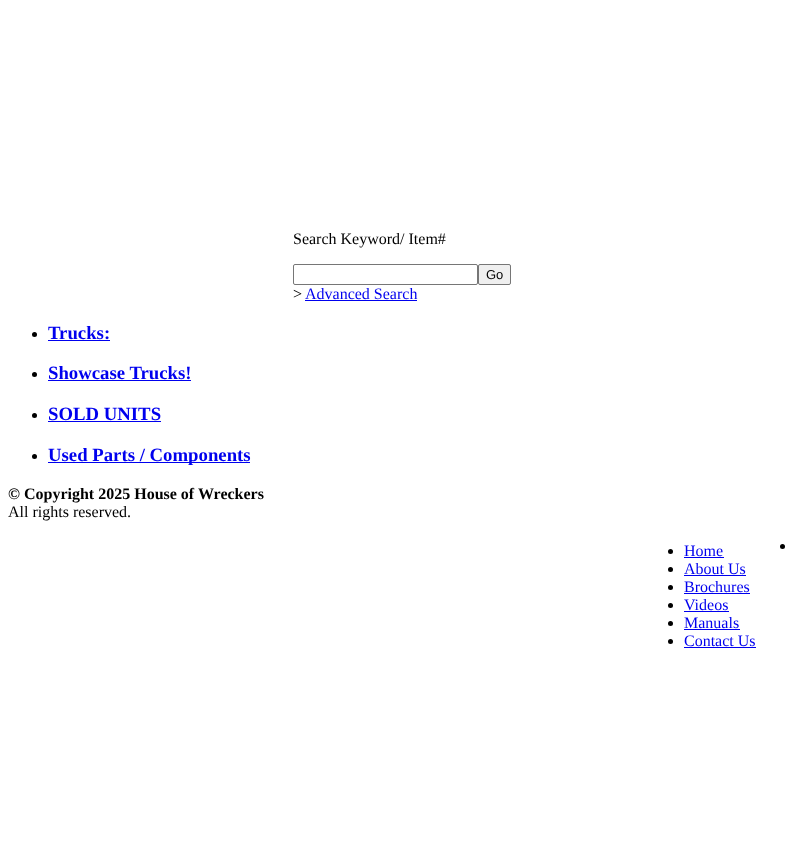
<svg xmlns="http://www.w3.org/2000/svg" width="804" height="860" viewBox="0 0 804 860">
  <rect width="100%" height="100%" fill="#fff"/>
  <rect x="293.5" y="264.5" width="184" height="20" rx="1.5" fill="none" stroke="#767676"/>
  <rect x="478.5" y="264.5" width="32" height="20" rx="1.5" fill="#efefef" stroke="#767676"/>
  <path d="M305 300h112v1H305z" fill="#00e"/>
  <circle cx="34.5" cy="334.5" r="2.5" fill="#000"/>
  <path d="M48 340h62v1H48z" fill="#00e"/>
  <circle cx="34.5" cy="374.5" r="2.5" fill="#000"/>
  <path d="M48 380h143v1H48z" fill="#00e"/>
  <circle cx="34.5" cy="415.5" r="2.5" fill="#000"/>
  <path d="M48 421h113v1H48z" fill="#00e"/>
  <circle cx="34.5" cy="456.5" r="2.5" fill="#000"/>
  <path d="M48 462h202v1H48z" fill="#00e"/>
  <circle cx="670.5" cy="551.5" r="2.5" fill="#000"/>
  <path d="M684 557h40v1H684z" fill="#00e"/>
  <circle cx="670.5" cy="569.5" r="2.5" fill="#000"/>
  <path d="M684 575h62v1H684z" fill="#00e"/>
  <circle cx="670.5" cy="587.5" r="2.5" fill="#000"/>
  <path d="M684 593h66v1H684z" fill="#00e"/>
  <circle cx="670.5" cy="605.5" r="2.5" fill="#000"/>
  <path d="M684 611h45v1H684z" fill="#00e"/>
  <circle cx="670.5" cy="623.5" r="2.5" fill="#000"/>
  <path d="M684 629h56v1H684z" fill="#00e"/>
  <circle cx="670.5" cy="641.5" r="2.5" fill="#000"/>
  <path d="M684 647h72v1H684z" fill="#00e"/>
  <circle cx="782.5" cy="546.5" r="2.5" fill="#000"/>
  <text x="293" y="244" font-family="Liberation Serif" font-size="16" fill="#000">Search Keyword/ Item#</text>
  <text x="486" y="279" font-family="Liberation Sans" font-size="13" fill="#000">Go</text>
  <text x="293" y="299" font-family="Liberation Serif" font-size="16" fill="#000">&gt;</text>
  <text x="305" y="299" font-family="Liberation Serif" font-size="16" fill="#00e">Advanced Search</text>
  <g font-family="Liberation Serif" font-size="18.75" font-weight="bold" fill="#00e">
    <text x="48" y="339">Trucks:</text>
    <text x="48" y="379">Showcase Trucks!</text>
    <text x="48" y="420">SOLD UNITS</text>
    <text x="48" y="461">Used Parts / Components</text>
  </g>
  <text x="8" y="499" font-family="Liberation Serif" font-size="16" font-weight="bold" fill="#000">© Copyright 2025 House of Wreckers</text>
  <text x="8" y="517" font-family="Liberation Serif" font-size="16" fill="#000">All rights reserved.</text>
  <g font-family="Liberation Serif" font-size="16" fill="#00e">
    <text x="684" y="556">Home</text>
    <text x="684" y="574">About Us</text>
    <text x="684" y="592">Brochures</text>
    <text x="684" y="610">Videos</text>
    <text x="684" y="628">Manuals</text>
    <text x="684" y="646">Contact Us</text>
  </g>
</svg>
